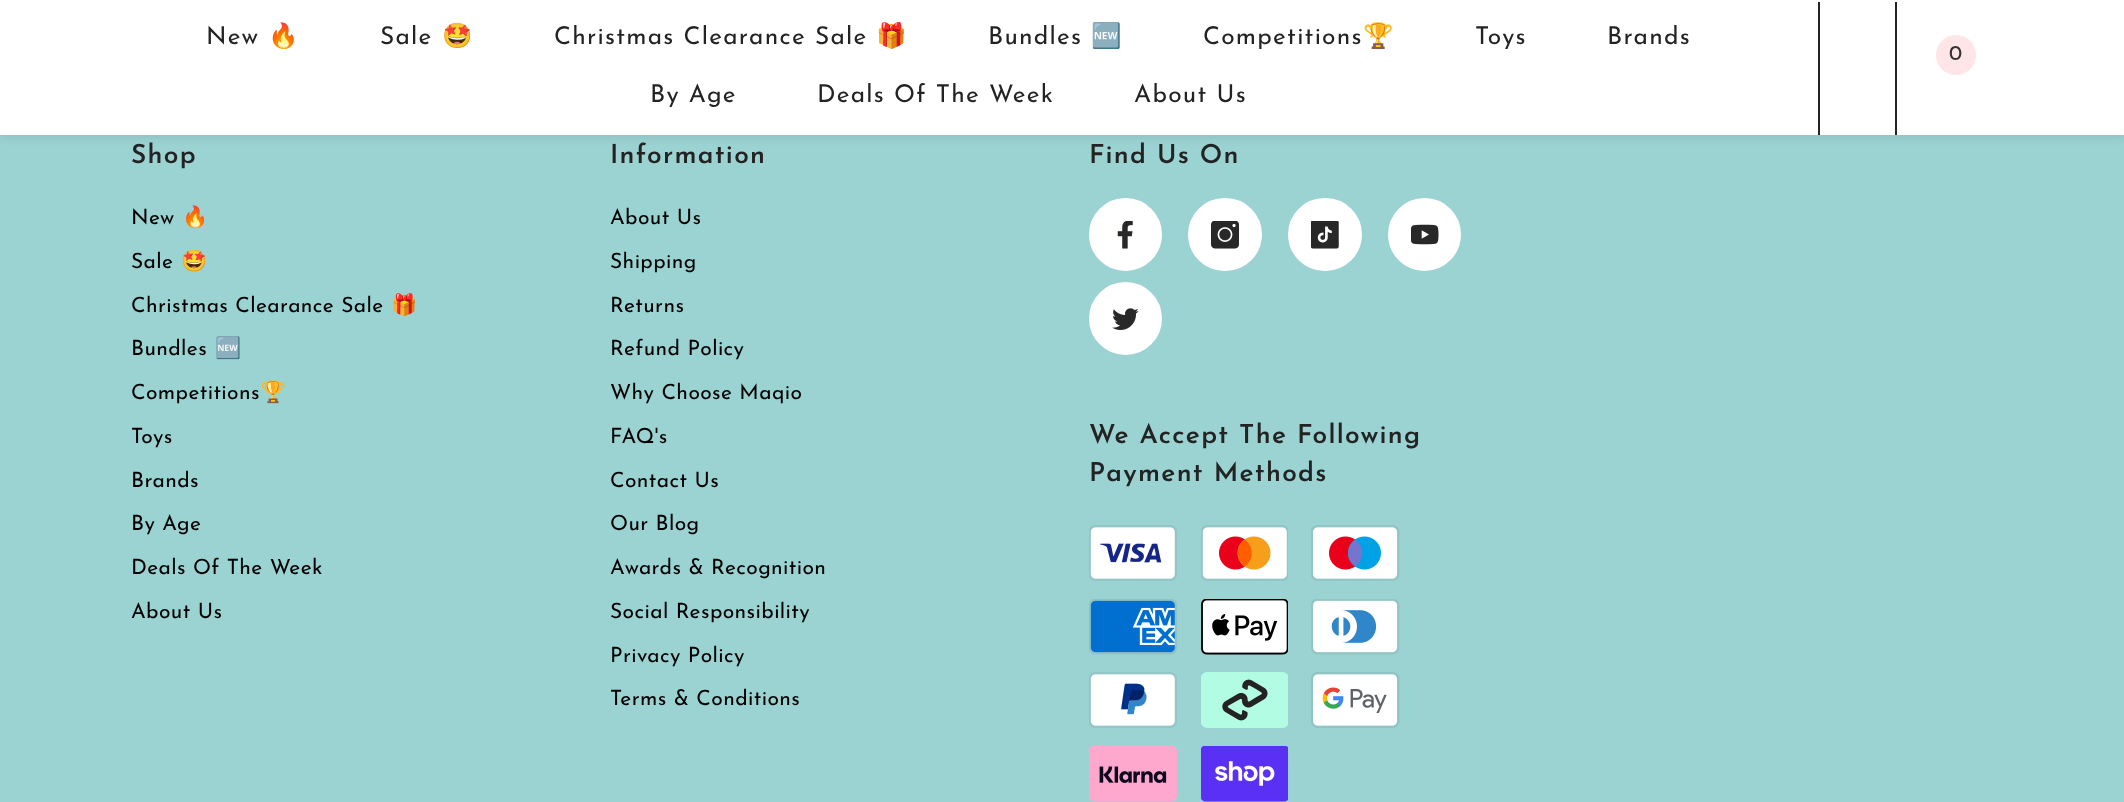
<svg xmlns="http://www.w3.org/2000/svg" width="2124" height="802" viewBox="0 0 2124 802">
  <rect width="100%" height="100%" fill="#9bd2d2"/>
  <path d="M0 2h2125v135H0z" fill="#1e1e1e1a" filter="blur(5px)"/>
  <path d="M0 0h2124v135H0z" fill="#fff"/>
  <path d="M1818 2h2v133H1818z" fill="#232323"/>
  <path d="M1895 2h2v133H1895z" fill="#232323"/>
  <circle cx="1956" cy="55" r="20" fill="#ffe5e8"/>
  <circle cx="1125.5" cy="234.5" r="35.5" fill="#fff" stroke="#fff" stroke-width="2"/>
  <image x="1117" y="221" width="16" height="28" href="img/1.png"/>
  <rect x="1189" y="199" width="72" height="71" rx="35.5" fill="#fff" stroke="#fff" stroke-width="2"/>
  <image x="1211" y="221" width="28" height="28" href="img/2.png"/>
  <rect x="1289" y="199" width="72" height="71" rx="35.5" fill="#fff" stroke="#fff" stroke-width="2"/>
  <image x="1311" y="221" width="28" height="28" href="img/3.png"/>
  <circle cx="1424.5" cy="234.5" r="35.5" fill="#fff" stroke="#fff" stroke-width="2"/>
  <image x="1411" y="224" width="28" height="21" href="img/4.png"/>
  <circle cx="1125.5" cy="318.5" r="35.5" fill="#fff" stroke="#fff" stroke-width="2"/>
  <image x="1112" y="308" width="27" height="22" href="img/5.png"/>
  <image x="1089" y="525" width="88" height="56" href="img/6.png"/>
  <image x="1201" y="525" width="87" height="56" href="img/7.png"/>
  <image x="1311" y="525" width="89" height="56" href="img/8.png"/>
  <image x="1089" y="599" width="88" height="56" href="img/9.png"/>
  <image x="1201" y="599" width="87" height="56" href="img/10.png"/>
  <image x="1311" y="599" width="89" height="56" href="img/11.png"/>
  <image x="1089" y="672" width="88" height="56" href="img/12.png"/>
  <image x="1201" y="672" width="87" height="56" href="img/13.png"/>
  <image x="1311" y="672" width="89" height="56" href="img/14.png"/>
  <image x="1089" y="746" width="88" height="55" href="img/15.png"/>
  <image x="1201" y="746" width="87" height="56" href="img/16.png"/>
  <text x="206" y="44" font-family="Josefin Sans" font-size="24.5" letter-spacing="1.25" fill="#232323">New</text>
  <text x="268" y="44" font-family="Noto Color Emoji" font-size="24.5" letter-spacing="1.25" fill="#232323">🔥</text>
  <text x="380" y="44" font-family="Josefin Sans" font-size="24.5" letter-spacing="1.25" fill="#232323">Sale</text>
  <text x="442" y="44" font-family="Noto Color Emoji" font-size="24.5" letter-spacing="1.25" fill="#232323">🤩</text>
  <text x="554" y="44" font-family="Josefin Sans" font-size="24.5" letter-spacing="1.25" fill="#232323">Christmas Clearance Sale</text>
  <text x="876" y="44" font-family="Noto Color Emoji" font-size="24.5" letter-spacing="1.25" fill="#232323">🎁</text>
  <text x="988" y="44" font-family="Josefin Sans" font-size="24.5" letter-spacing="1.25" fill="#232323">Bundles</text>
  <text x="1091" y="44" font-family="Noto Color Emoji" font-size="24.5" letter-spacing="1.25" fill="#232323">🆕</text>
  <text x="1203" y="44" font-family="Josefin Sans" font-size="24.5" letter-spacing="1.25" fill="#232323">Competitions</text>
  <text x="1363" y="44" font-family="Noto Color Emoji" font-size="24.5" letter-spacing="1.25" fill="#232323">🏆</text>
  <g font-family="Josefin Sans" font-size="24.5" letter-spacing="1.25" fill="#232323">
    <text x="1475" y="44">Toys</text>
    <text x="1607" y="44">Brands</text>
    <text x="650" y="102">By Age</text>
    <text x="817" y="102">Deals Of The Week</text>
    <text x="1134" y="102">About Us</text>
  </g>
  <text x="1949" y="60" font-family="Josefin Sans" font-size="21" fill="#323232">0</text>
  <text x="131" y="163" font-family="Josefin Sans" font-size="26.25" font-weight="600" letter-spacing="1.3" fill="#232323">Shop</text>
  <text x="131" y="224" font-family="Josefin Sans" font-size="21" letter-spacing="0.4" fill="#000">New</text>
  <text x="182" y="224" font-family="Noto Color Emoji" font-size="21" letter-spacing="0.4" fill="#000">🔥</text>
  <text x="131" y="268" font-family="Josefin Sans" font-size="21" letter-spacing="0.4" fill="#000">Sale</text>
  <text x="181" y="268" font-family="Noto Color Emoji" font-size="21" letter-spacing="0.4" fill="#000">🤩</text>
  <text x="131" y="312" font-family="Josefin Sans" font-size="21" letter-spacing="0.4" fill="#000">Christmas Clearance Sale</text>
  <text x="391" y="312" font-family="Noto Color Emoji" font-size="21" letter-spacing="0.4" fill="#000">🎁</text>
  <text x="131" y="355" font-family="Josefin Sans" font-size="21" letter-spacing="0.4" fill="#000">Bundles</text>
  <text x="215" y="355" font-family="Noto Color Emoji" font-size="21" letter-spacing="0.4" fill="#000">🆕</text>
  <text x="131" y="399" font-family="Josefin Sans" font-size="21" letter-spacing="0.4" fill="#000">Competitions</text>
  <text x="260" y="399" font-family="Noto Color Emoji" font-size="21" letter-spacing="0.4" fill="#000">🏆</text>
  <g font-family="Josefin Sans" font-size="21" letter-spacing="0.4" fill="#000">
    <text x="131" y="443">Toys</text>
    <text x="131" y="487">Brands</text>
    <text x="131" y="530">By Age</text>
    <text x="131" y="574">Deals Of The Week</text>
    <text x="131" y="618">About Us</text>
  </g>
  <text x="610" y="163" font-family="Josefin Sans" font-size="26.25" font-weight="600" letter-spacing="1.3" fill="#232323">Information</text>
  <g font-family="Josefin Sans" font-size="21" letter-spacing="0.4" fill="#000">
    <text x="610" y="224">About Us</text>
    <text x="610" y="268">Shipping</text>
    <text x="610" y="312">Returns</text>
    <text x="610" y="355">Refund Policy</text>
    <text x="610" y="399">Why Choose Maqio</text>
    <text x="610" y="443">FAQ's</text>
    <text x="610" y="487">Contact Us</text>
    <text x="610" y="530">Our Blog</text>
    <text x="610" y="574">Awards &amp; Recognition</text>
    <text x="610" y="618">Social Responsibility</text>
    <text x="610" y="662">Privacy Policy</text>
    <text x="610" y="705">Terms &amp; Conditions</text>
  </g>
  <g font-family="Josefin Sans" font-size="26.25" font-weight="600" letter-spacing="1.3" fill="#232323">
    <text x="1089" y="163">Find Us On</text>
    <text x="1089" y="443">We Accept The Following</text>
    <text x="1089" y="481">Payment Methods</text>
  </g>
</svg>
